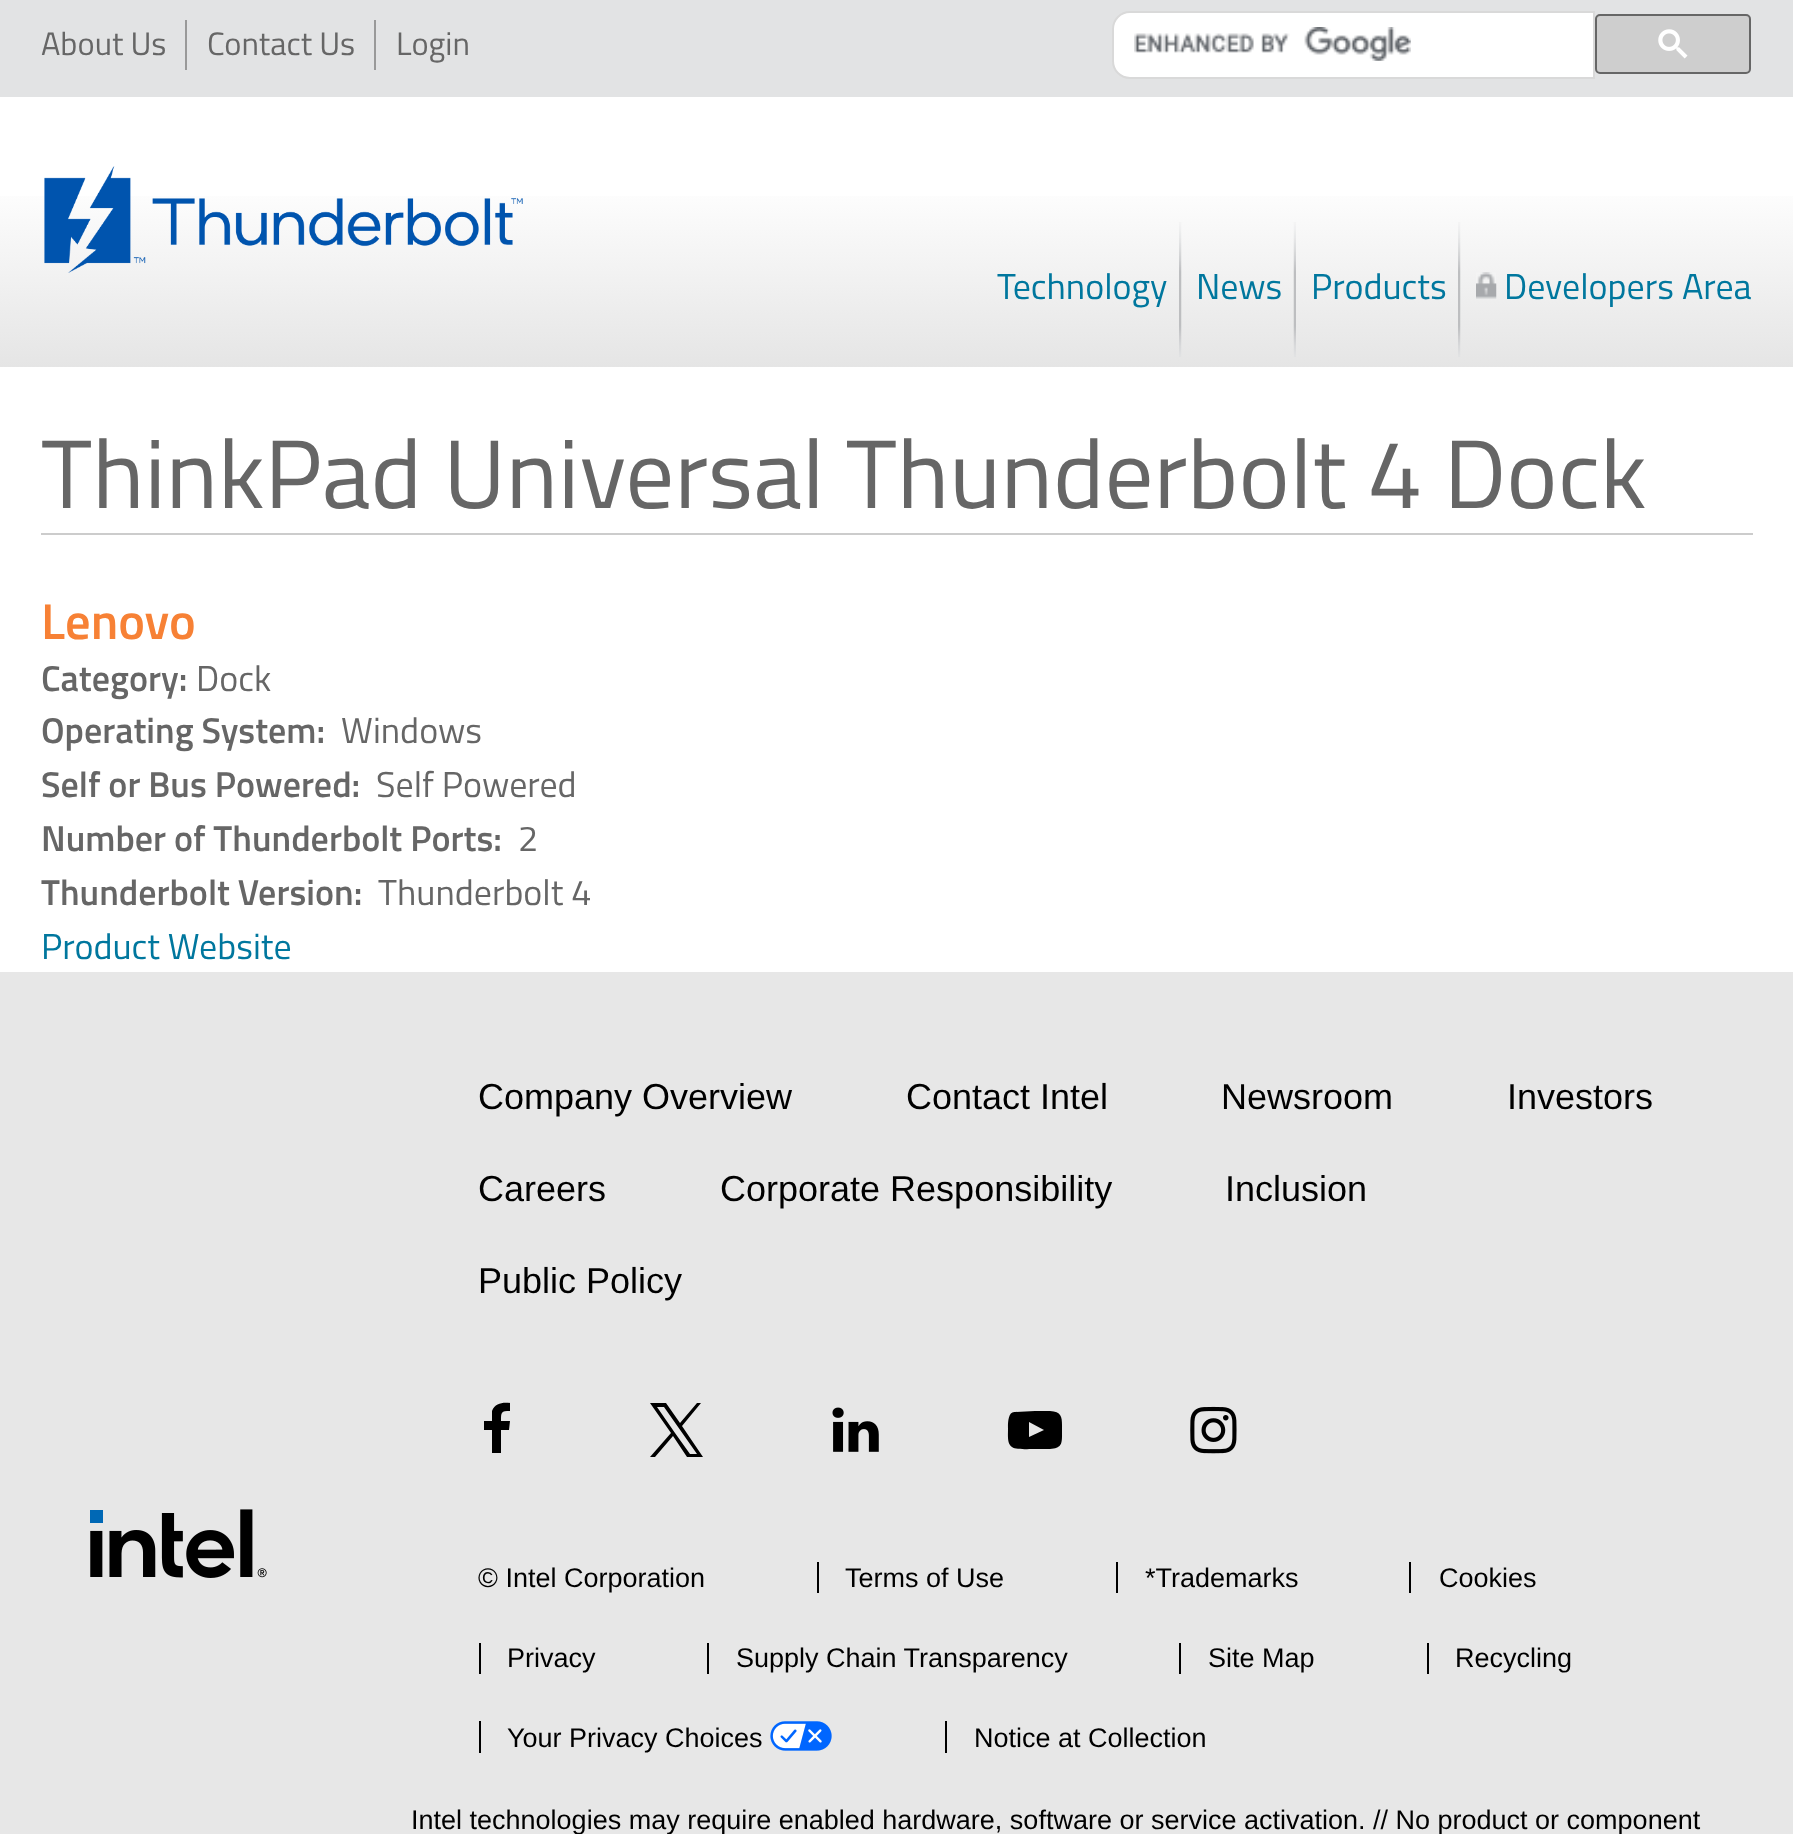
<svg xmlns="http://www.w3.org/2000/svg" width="1793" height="1834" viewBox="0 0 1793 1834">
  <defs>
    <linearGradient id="g1" gradientUnits="userSpaceOnUse" x1="897" y1="97" x2="897" y2="367"><stop offset="0.3" stop-color="#fff"/><stop offset="1" stop-color="#e5e5e5"/></linearGradient>
  </defs>
  <rect width="100%" height="100%" fill="#fff"/>
  <path d="M0 0h1793v97H0z" fill="#e2e3e4"/>
  <path d="M185 20h2v50H185z" fill="#999"/>
  <path d="M374 20h2v50H374z" fill="#999"/>
  <path d="M1130 12H1594V78H1130C1120.5 78 1113 70.5 1113 61V29C1113 19.5 1120.5 12 1130 12Z" fill="#fff" stroke="#d9d9d9" stroke-width="2"/>
  <image x="1134" y="27" width="277" height="34" href="img/1.png"/>
  <rect x="1596" y="15" width="154" height="58" rx="4" fill="#cecece" stroke="#666" stroke-width="2"/>
  <image x="1658" y="29" width="30" height="30" href="img/2.png"/>
  <path d="M0 196h1793v171H0z" fill="url(#g1)"/>
  <image x="44" y="166" width="479" height="107" href="img/3.png"/>
  <image x="1179" y="222" width="3" height="135" href="img/4.png"/>
  <image x="1293" y="222" width="3" height="135" href="img/5.png"/>
  <image x="1458" y="222" width="3" height="135" href="img/4.png"/>
  <image x="1476" y="272" width="21" height="27" href="img/6.png"/>
  <path d="M41 533h1712v2H41z" fill="#ccc"/>
  <path d="M0 972h1793v862H0z" fill="#e7e7e7"/>
  <image x="90" y="1509" width="177" height="69" href="img/7.png"/>
  <path d="M510 1403V1411C501 1411 501 1412 501 1421H510L509 1430H501V1453H492V1430H484V1421H492V1411C495 1403 503 1402 510 1403Z" fill="#000"/>
  <path d="M682 1426L701 1403H697L680 1423L666 1403H650L671 1433L650 1457H655L673 1436L687 1457H703ZM675 1433L657 1407H664L697 1454H690Z" fill="#000"/>
  <image x="832" y="1407" width="47" height="45" href="img/8.png"/>
  <path d="M1029 1437L1044 1430L1029 1422ZM1035 1411H1050C1063 1412 1062 1418 1062 1430C1062 1443 1063 1448 1050 1449H1033C1028 1449 1016 1450 1012 1447C1007 1444 1008 1435 1008 1430C1008 1427 1007 1411 1015 1412Z" fill="#000"/>
  <image x="1190" y="1406" width="47" height="48" href="img/9.png"/>
  <path d="M817 1562h2v31H817z" fill="#000"/>
  <path d="M1116 1562h2v31H1116z" fill="#000"/>
  <path d="M1409 1562h2v31H1409z" fill="#000"/>
  <path d="M479 1643h2v31H479z" fill="#000"/>
  <path d="M707 1643h2v31H707z" fill="#000"/>
  <path d="M1179 1643h2v31H1179z" fill="#000"/>
  <path d="M1427 1643h2v31H1427z" fill="#000"/>
  <path d="M479 1721h2v32H479z" fill="#000"/>
  <image x="770" y="1721" width="62" height="30" href="img/10.png"/>
  <path d="M945 1721h2v32H945z" fill="#000"/>
  <g font-family="Titillium Web" font-size="32.5" fill="#666">
    <text x="41" y="55">About Us</text>
    <text x="207" y="55">Contact Us</text>
    <text x="396" y="55">Login</text>
  </g>
  <g font-family="Titillium Web" font-size="36" fill="#00779e">
    <text x="997" y="299">Technology</text>
    <text x="1196" y="299">News</text>
    <text x="1311" y="299">Products</text>
    <text x="1504" y="299">Developers Area</text>
  </g>
  <text x="41" y="508" font-family="Titillium Web" font-size="97.25" fill="#666">ThinkPad Universal Thunderbolt 4 Dock</text>
  <text x="41" y="639" font-family="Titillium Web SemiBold" font-size="50.5" font-weight="600" fill="#f78135">Lenovo</text>
  <text x="41" y="691" font-family="Titillium Web SemiBold" font-size="36" font-weight="600" fill="#666">Category:</text>
  <text x="196" y="691" font-family="Titillium Web" font-size="36" fill="#666">Dock</text>
  <text x="41" y="743" font-family="Titillium Web SemiBold" font-size="36" font-weight="600" fill="#666">Operating System:</text>
  <text x="341" y="743" font-family="Titillium Web" font-size="36" fill="#666">Windows</text>
  <text x="41" y="797" font-family="Titillium Web SemiBold" font-size="36" font-weight="600" fill="#666">Self or Bus Powered:</text>
  <text x="376" y="797" font-family="Titillium Web" font-size="36" fill="#666">Self Powered</text>
  <text x="41" y="851" font-family="Titillium Web SemiBold" font-size="36" font-weight="600" fill="#666">Number of Thunderbolt Ports:</text>
  <text x="518" y="851" font-family="Titillium Web" font-size="36" fill="#666">2</text>
  <text x="41" y="905" font-family="Titillium Web SemiBold" font-size="36" font-weight="600" fill="#666">Thunderbolt Version:</text>
  <text x="378" y="905" font-family="Titillium Web" font-size="36" fill="#666">Thunderbolt 4</text>
  <text x="41" y="959" font-family="Titillium Web" font-size="36" fill="#00779e">Product Website</text>
  <g font-family="Liberation Sans" font-size="36" fill="#000">
    <text x="478" y="1109">Company Overview</text>
    <text x="906" y="1109">Contact Intel</text>
    <text x="1221" y="1109">Newsroom</text>
    <text x="1507" y="1109">Investors</text>
    <text x="478" y="1201">Careers</text>
    <text x="720" y="1201">Corporate Responsibility</text>
    <text x="1225" y="1201">Inclusion</text>
    <text x="478" y="1293">Public Policy</text>
  </g>
  <g font-family="Liberation Sans" font-size="27" fill="#000">
    <text x="478" y="1587">© Intel Corporation</text>
    <text x="845" y="1587">Terms of Use</text>
    <text x="1145" y="1587">*Trademarks</text>
    <text x="1439" y="1587">Cookies</text>
    <text x="507" y="1667">Privacy</text>
    <text x="736" y="1667">Supply Chain Transparency</text>
    <text x="1208" y="1667">Site Map</text>
    <text x="1455" y="1667">Recycling</text>
    <text x="507" y="1747">Your Privacy Choices</text>
    <text x="974" y="1747">Notice at Collection</text>
    <text x="411" y="1829">Intel technologies may require enabled hardware, software or service activation. // No product or component</text>
  </g>
</svg>
